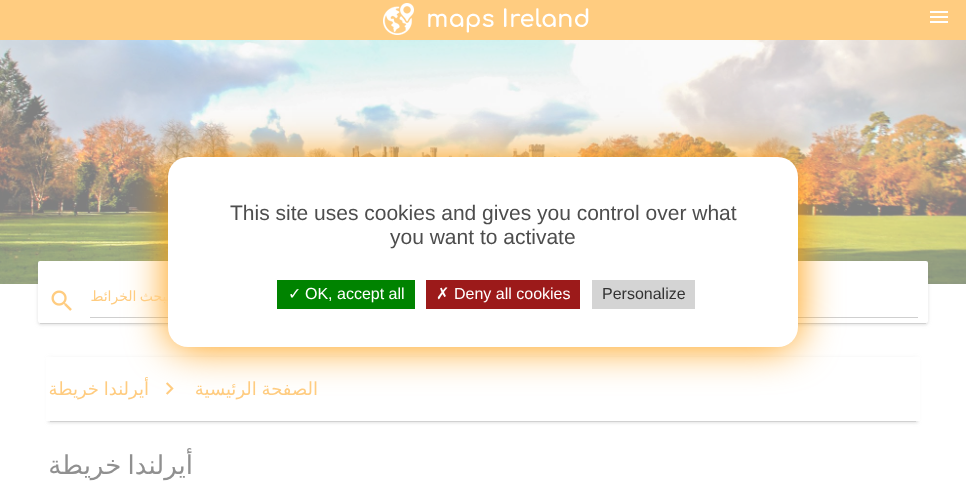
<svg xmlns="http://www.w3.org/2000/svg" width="966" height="503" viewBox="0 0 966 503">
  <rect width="100%" height="100%" fill="#fff"/>
  <path d="M0 0h966v40H0z" fill="#ffcc80"/>
  <image x="383" y="3" width="206" height="32" href="img/1.png"/>
  <image x="930" y="11" width="18" height="12" href="img/2.png"/>
  <image x="0" y="40" width="966" height="244" href="img/3.png"/>
  <path d="M40 266h886v58H40z" fill="#80808033" filter="blur(0.5px)"/>
  <rect x="38" y="262" width="890" height="62" rx="2" fill="#8080801f" filter="blur(2.5px)"/>
  <rect x="38" y="263" width="890" height="62" rx="2" fill="#80808024" filter="blur(1px)"/>
  <rect x="38" y="261" width="890" height="62" rx="2" fill="#fff"/>
  <path d="M90 317h828v1H90z" fill="#cfcfcf"/>
  <path d="M50 362h866v60H50z" fill="#80808033" filter="blur(0.5px)"/>
  <path d="M48 358h870v64H48z" fill="#8080801f" filter="blur(2.5px)"/>
  <path d="M48 359h870v64H48z" fill="#80808024" filter="blur(1px)"/>
  <path d="M46 357h874v64H46z" fill="#fff"/>
  <image x="166" y="382" width="8" height="13" href="img/5.png"/>
  <rect x="168" y="157" width="630" height="190" rx="20" fill="#ff9800" filter="blur(20px)"/>
  <image x="51" y="290" width="21" height="21" href="img/4.png"/>
  <text x="175" y="301" word-spacing="-1" font-family="DejaVu Sans" font-size="14" direction="rtl" fill="#ffcc80">البحث الخرائط</text>
  <rect x="168" y="157" width="630" height="190" rx="20" fill="#fff"/>
  <path d="M592 280h103v29H592z" fill="#d4d4d4"/>
  <text x="602" y="299" font-family="Liberation Sans" font-size="16" fill="#333">Personalize</text>
  <path d="M426 280h154v29H426z" fill="#9c1a1a"/>
  <text x="454" y="299" font-family="Liberation Sans" font-size="16" fill="#fff">Deny all cookies</text>
  <text x="436" y="299" font-family="DejaVu Sans" font-size="16" fill="#fff">✗</text>
  <path d="M277 280h138v29H277z" fill="#008300"/>
  <text x="305" y="299" font-family="Liberation Sans" font-size="16" fill="#fff">OK, accept all</text>
  <text x="288" y="299" font-family="DejaVu Sans" font-size="16" fill="#fff">✓</text>
  <g font-family="Liberation Sans" font-size="21" fill="#4d4d4d">
    <text x="390" y="244">you want to activate</text>
    <text x="230" y="220">This site uses cookies and gives you control over what</text>
  </g>
  <g font-family="DejaVu Sans" font-size="18" direction="rtl" fill="#ffcc80">
    <text x="149" y="395" word-spacing="-1">أيرلندا خريطة</text>
    <text x="318" y="395" word-spacing="-1">الصفحة الرئيسية</text>
  </g>
  <text x="193" y="474" word-spacing="-2" font-family="DejaVu Sans" font-size="26" direction="rtl" fill="#909090">أيرلندا خريطة</text>
</svg>
